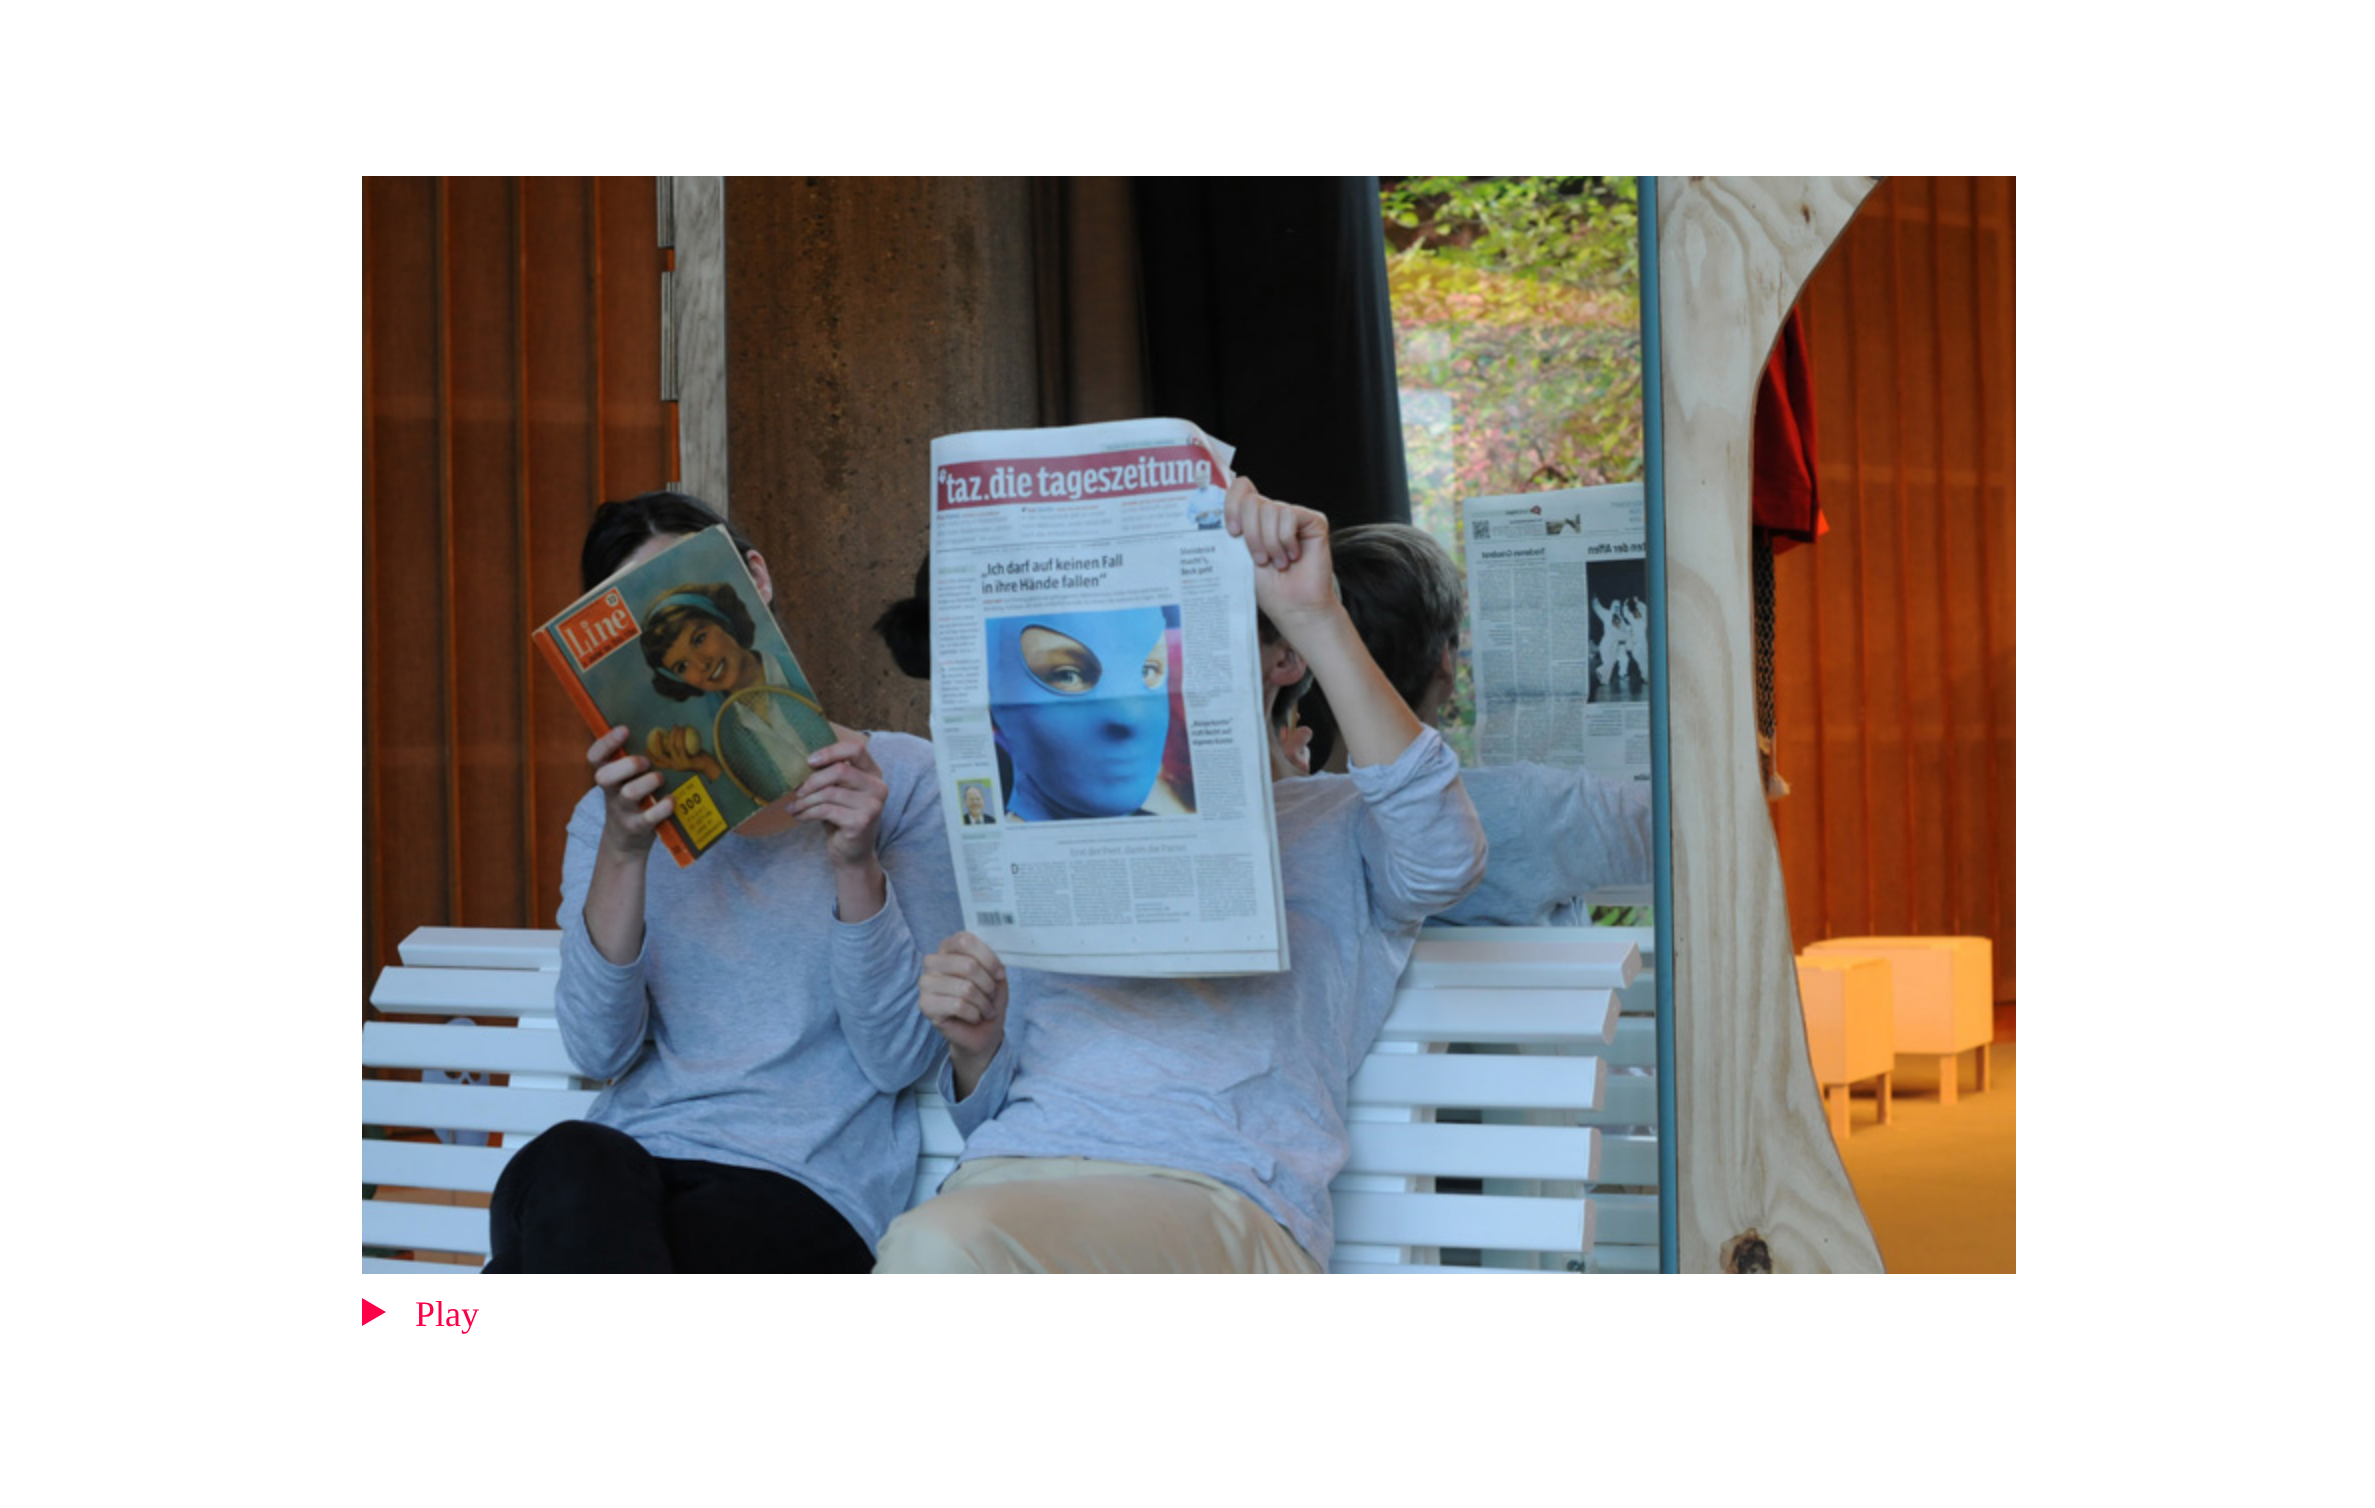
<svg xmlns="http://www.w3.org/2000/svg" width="2375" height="1508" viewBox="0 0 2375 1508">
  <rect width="100%" height="100%" fill="#fff"/>
  <image x="362" y="176" width="1654" height="1098" href="img/1.png"/>
  <path d="M362 1298L386 1312L362 1326ZM362 1298L386 1312L362 1326Z" fill="#fe0048"/>
  <text x="415" y="1326" font-family="Liberation Serif" font-size="36" fill="#fe0048">Play</text>
</svg>
